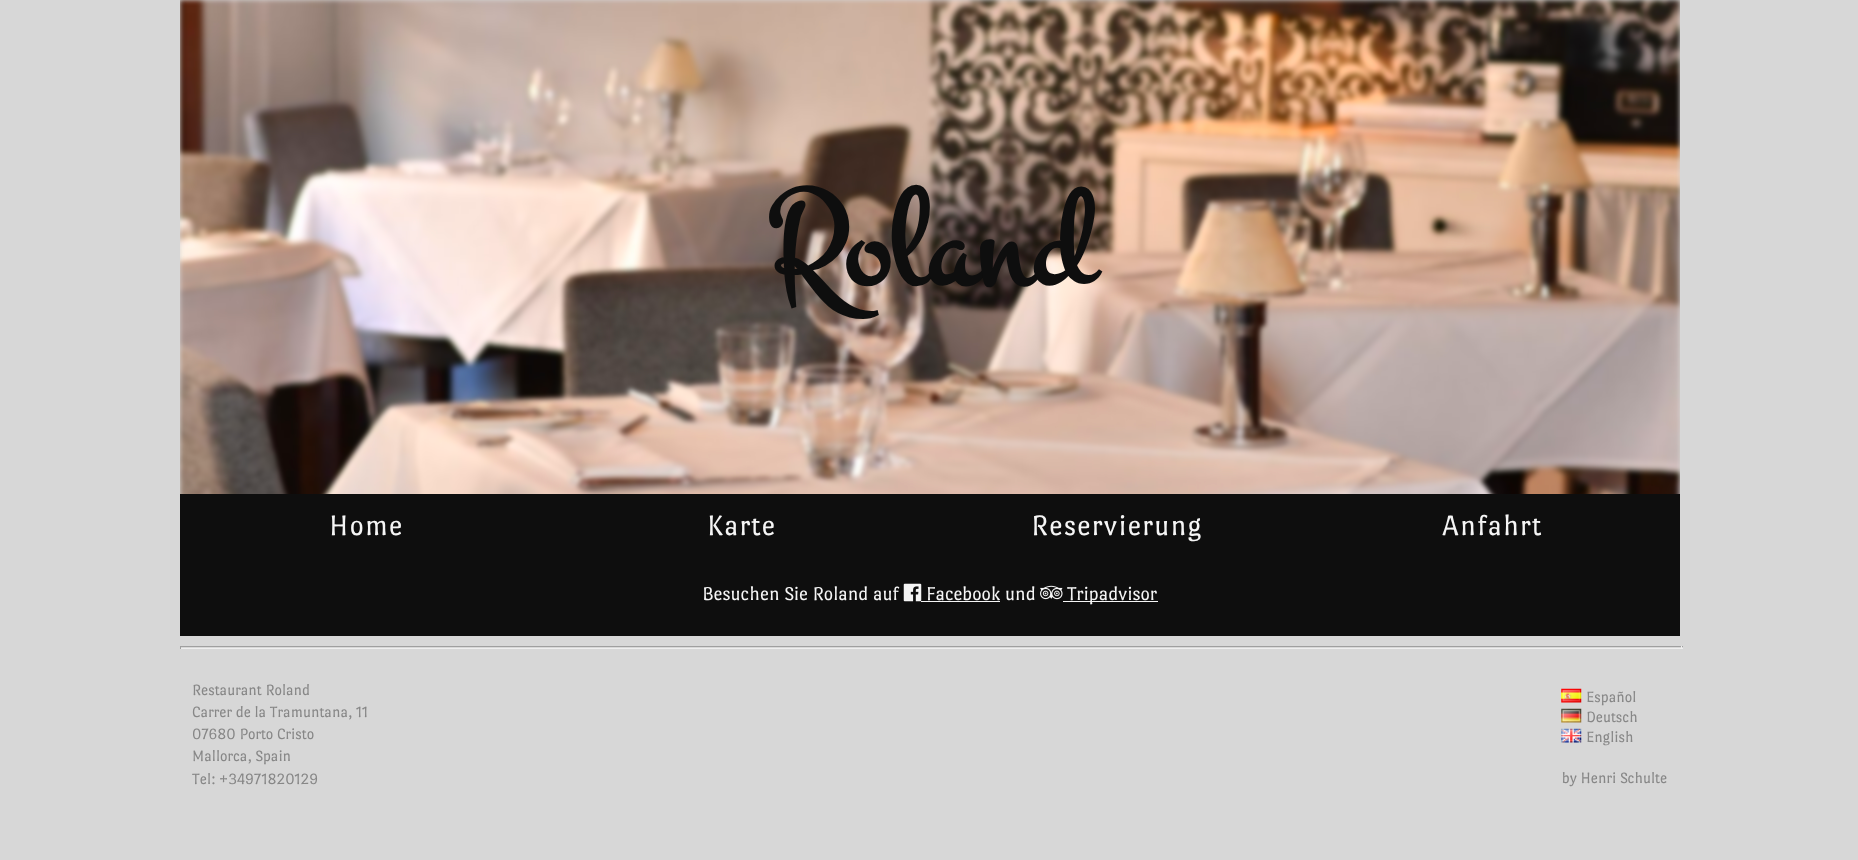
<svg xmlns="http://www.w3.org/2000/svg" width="1858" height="860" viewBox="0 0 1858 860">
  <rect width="100%" height="100%" fill="#d7d7d7"/>
  <image x="180" y="0" width="1500" height="494" href="img/1.png"/>
  <path d="M180 494h1500v142H180z" fill="#0e0e0e"/>
  <image x="903" y="583" width="19" height="19" href="img/2.png"/>
  <path d="M921 601h79v1H921z" fill="#f5f5f5"/>
  <image x="1040" y="585" width="23" height="15" href="img/3.png"/>
  <path d="M1063 601h95v1H1063z" fill="#f5f5f5"/>
  <path d="M180 646h1503v1H180z" fill="#9f9f9f"/>
  <path d="M1681 646h1v3H1681z" fill="#eee"/>
  <path d="M180 648h1503v1H180z" fill="#eee"/>
  <path d="M180 646h1v3H180z" fill="#9f9f9f"/>
  <image x="1561" y="688" width="21" height="15" href="img/4.png"/>
  <image x="1561" y="708" width="21" height="15" href="img/5.png"/>
  <image x="1561" y="728" width="21" height="15" href="img/6.png"/>
  <text x="767" y="284" font-family="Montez" font-size="140" font-weight="bold" fill="#0e0e0e">Roland</text>
  <g font-family="Port Lligat Sans" font-size="30" letter-spacing="1.25" fill="#f5f5f5">
    <text x="329" y="535">Home</text>
    <text x="707" y="535">Karte</text>
    <text x="1031" y="535">Reservierung</text>
    <text x="1442" y="535">Anfahrt</text>
  </g>
  <g font-family="Port Lligat Sans" font-size="20" fill="#f5f5f5">
    <text x="702" y="600">Besuchen Sie Roland auf</text>
    <text x="926" y="600">Facebook und</text>
    <text x="1067" y="600">Tripadvisor</text>
  </g>
  <g font-family="Port Lligat Sans" font-size="16" fill="#878787">
    <text x="192" y="695">Restaurant Roland</text>
    <text x="192" y="717">Carrer de la Tramuntana, 11</text>
    <text x="192" y="739">07680 Porto Cristo</text>
    <text x="192" y="761">Mallorca, Spain</text>
    <text x="192" y="784">Tel: +34971820129</text>
    <text x="1586" y="702">Español</text>
    <text x="1586" y="722">Deutsch</text>
    <text x="1586" y="742">English</text>
    <text x="1562" y="783">by Henri Schulte</text>
  </g>
</svg>
